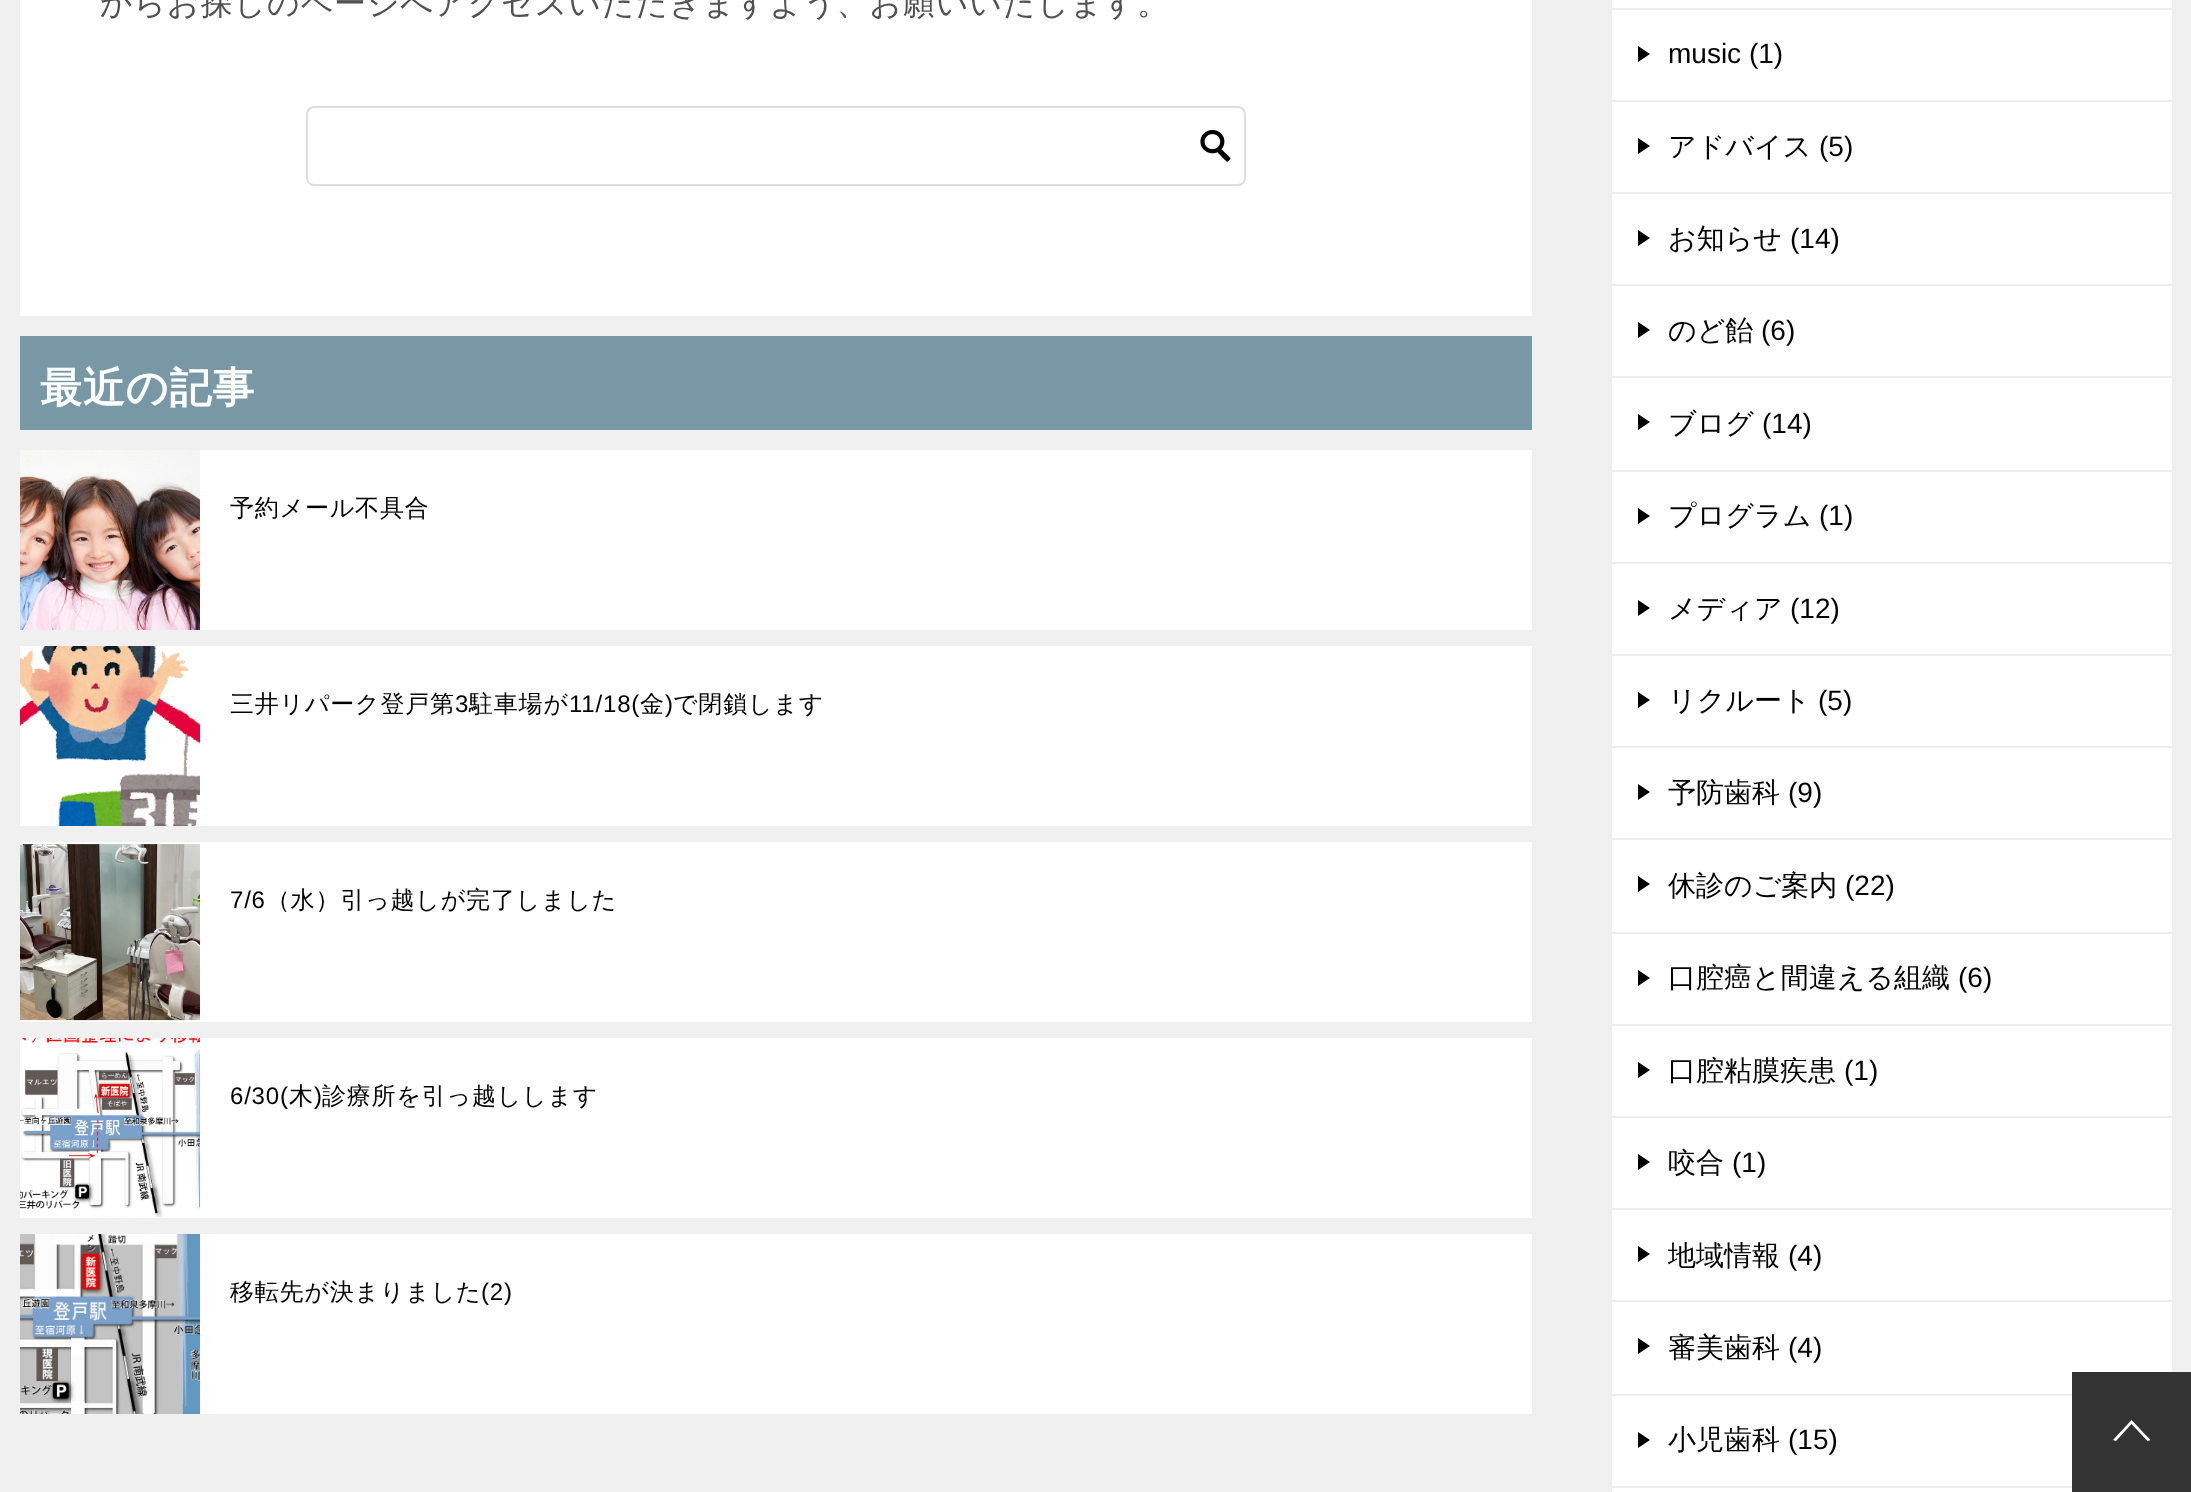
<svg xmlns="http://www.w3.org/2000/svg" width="2191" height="1492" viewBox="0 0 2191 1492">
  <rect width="100%" height="100%" fill="#f0f0f0"/>
  <path d="M20 0h1512v316H20z" fill="#fff"/>
  <rect x="307" y="107" width="938" height="78" rx="7" fill="none" stroke="#ddd" stroke-width="2"/>
  <image x="1200" y="130" width="31" height="32" href="img/1.png"/>
  <path d="M20 336h1512v94H20z" fill="#7898a5"/>
  <path d="M200 450h1332v180H200z" fill="#fff"/>
  <image x="20" y="450" width="180" height="180" href="img/2.png"/>
  <path d="M20 646h1512v180H20z" fill="#fff"/>
  <image x="20" y="646" width="180" height="180" href="img/3.png"/>
  <path d="M20 842h1512v180H20z" fill="#fff"/>
  <image x="20" y="844" width="180" height="177" href="img/4.png"/>
  <path d="M200 1038h1332v180H200z" fill="#fff"/>
  <image x="20" y="1038" width="180" height="180" href="img/5.png"/>
  <path d="M200 1234h1332v180H200z" fill="#fff"/>
  <image x="20" y="1234" width="180" height="180" href="img/6.png"/>
  <path d="M1612 0h560v1492H1612z" fill="#fff"/>
  <path d="M1612 8h560v2H1612z" fill="#eee"/>
  <path d="M1612 100h560v2H1612z" fill="#eee"/>
  <path d="M1638 62V46L1650 54Z" fill="#000"/>
  <path d="M1612 192h560v2H1612z" fill="#eee"/>
  <path d="M1638 154V138L1650 146Z" fill="#000"/>
  <path d="M1612 284h560v2H1612z" fill="#eee"/>
  <path d="M1638 246V230L1650 238Z" fill="#000"/>
  <path d="M1612 376h560v2H1612z" fill="#eee"/>
  <path d="M1638 338V322L1650 330Z" fill="#000"/>
  <path d="M1612 470h560v2H1612z" fill="#eee"/>
  <path d="M1638 430V414L1650 422Z" fill="#000"/>
  <path d="M1612 562h560v2H1612z" fill="#eee"/>
  <path d="M1638 524V508L1650 516Z" fill="#000"/>
  <path d="M1612 654h560v2H1612z" fill="#eee"/>
  <path d="M1638 616V600L1650 608Z" fill="#000"/>
  <path d="M1612 746h560v2H1612z" fill="#eee"/>
  <path d="M1638 708V692L1650 700Z" fill="#000"/>
  <path d="M1612 838h560v2H1612z" fill="#eee"/>
  <path d="M1638 800V784L1650 792Z" fill="#000"/>
  <path d="M1612 932h560v2H1612z" fill="#eee"/>
  <path d="M1638 892V876L1650 884Z" fill="#000"/>
  <path d="M1612 1024h560v2H1612z" fill="#eee"/>
  <path d="M1638 986V970L1650 978Z" fill="#000"/>
  <path d="M1612 1116h560v2H1612z" fill="#eee"/>
  <path d="M1638 1078V1062L1650 1070Z" fill="#000"/>
  <path d="M1612 1208h560v2H1612z" fill="#eee"/>
  <path d="M1638 1170V1154L1650 1162Z" fill="#000"/>
  <path d="M1612 1300h560v2H1612z" fill="#eee"/>
  <path d="M1638 1262V1246L1650 1254Z" fill="#000"/>
  <path d="M1612 1394h460v2H1612z" fill="#eee"/>
  <path d="M1638 1354V1338L1650 1346Z" fill="#000"/>
  <path d="M1612 1486h460v2H1612z" fill="#eee"/>
  <path d="M1638 1448V1432L1650 1440Z" fill="#000"/>
  <path d="M2072 1372h119v120H2072z" fill="#333"/>
  <path d="M2131.5 1420L2150.5 1440L2147.5 1441L2131.5 1424L2116 1441L2113 1440Z" fill="#fff"/>
  <text x="100" y="14" font-family="WenQuanYi Zen Hei" font-size="32" font-weight="500" letter-spacing="0.8" fill="#505050">からお探しのページへアクセスいただきますよう、お願いいたします。</text>
  <text x="40" y="402" font-family="WenQuanYi Zen Hei" font-size="42" font-weight="bold" letter-spacing="0.8" fill="#fff">最近の記事</text>
  <g font-family="WenQuanYi Zen Hei" font-size="24" font-weight="500" letter-spacing="0.8" fill="#000">
    <text x="230" y="516">予約メール不具合</text>
    <text x="230" y="712">三井リパーク登戸第</text>
  </g>
  <text x="455" y="712" font-family="Liberation Sans" font-size="24" letter-spacing="0.8" fill="#000">3</text>
  <text x="469" y="712" font-family="WenQuanYi Zen Hei" font-size="24" font-weight="500" letter-spacing="0.8" fill="#000">駐車場が</text>
  <text x="569" y="712" font-family="Liberation Sans" font-size="24" letter-spacing="0.8" fill="#000">11/18(</text>
  <text x="640" y="712" font-family="WenQuanYi Zen Hei" font-size="24" font-weight="500" letter-spacing="0.8" fill="#000">金</text>
  <text x="665" y="712" font-family="Liberation Sans" font-size="24" letter-spacing="0.8" fill="#000">)</text>
  <text x="673" y="712" font-family="WenQuanYi Zen Hei" font-size="24" font-weight="500" letter-spacing="0.8" fill="#000">で閉鎖します</text>
  <text x="230" y="908" font-family="Liberation Sans" font-size="24" letter-spacing="0.8" fill="#000">7/6</text>
  <text x="266" y="908" font-family="WenQuanYi Zen Hei" font-size="24" font-weight="500" letter-spacing="0.8" fill="#000">（水）引っ越しが完了しました</text>
  <text x="230" y="1104" font-family="Liberation Sans" font-size="24" letter-spacing="0.8" fill="#000">6/30(</text>
  <text x="289" y="1104" font-family="WenQuanYi Zen Hei" font-size="24" font-weight="500" letter-spacing="0.8" fill="#000">木</text>
  <text x="314" y="1104" font-family="Liberation Sans" font-size="24" letter-spacing="0.8" fill="#000">)</text>
  <g font-family="WenQuanYi Zen Hei" font-size="24" font-weight="500" letter-spacing="0.8" fill="#000">
    <text x="322" y="1104">診療所を引っ越しします</text>
    <text x="230" y="1300">移転先が決まりました</text>
  </g>
  <text x="481" y="1300" font-family="Liberation Sans" font-size="24" letter-spacing="0.8" fill="#000">(2)</text>
  <text x="1668" y="63" font-family="Liberation Sans" font-size="28" fill="#000">music (1)</text>
  <text x="1668" y="156" font-family="WenQuanYi Zen Hei" font-size="28" font-weight="500" fill="#000">アドバイス</text>
  <text x="1819" y="156" font-family="Liberation Sans" font-size="28" fill="#000">(5)</text>
  <text x="1668" y="248" font-family="WenQuanYi Zen Hei" font-size="28" font-weight="500" fill="#000">お知らせ</text>
  <text x="1790" y="248" font-family="Liberation Sans" font-size="28" fill="#000">(14)</text>
  <text x="1668" y="340" font-family="WenQuanYi Zen Hei" font-size="28" font-weight="500" fill="#000">のど飴</text>
  <text x="1761" y="340" font-family="Liberation Sans" font-size="28" fill="#000">(6)</text>
  <text x="1668" y="433" font-family="WenQuanYi Zen Hei" font-size="28" font-weight="500" fill="#000">ブログ</text>
  <text x="1762" y="433" font-family="Liberation Sans" font-size="28" fill="#000">(14)</text>
  <text x="1668" y="525" font-family="WenQuanYi Zen Hei" font-size="28" font-weight="500" fill="#000">プログラム</text>
  <text x="1819" y="525" font-family="Liberation Sans" font-size="28" fill="#000">(1)</text>
  <text x="1668" y="618" font-family="WenQuanYi Zen Hei" font-size="28" font-weight="500" fill="#000">メディア</text>
  <text x="1790" y="618" font-family="Liberation Sans" font-size="28" fill="#000">(12)</text>
  <text x="1668" y="710" font-family="WenQuanYi Zen Hei" font-size="28" font-weight="500" fill="#000">リクルート</text>
  <text x="1818" y="710" font-family="Liberation Sans" font-size="28" fill="#000">(5)</text>
  <text x="1668" y="802" font-family="WenQuanYi Zen Hei" font-size="28" font-weight="500" fill="#000">予防歯科</text>
  <text x="1788" y="802" font-family="Liberation Sans" font-size="28" fill="#000">(9)</text>
  <text x="1668" y="895" font-family="WenQuanYi Zen Hei" font-size="28" font-weight="500" fill="#000">休診のご案内</text>
  <text x="1845" y="895" font-family="Liberation Sans" font-size="28" fill="#000">(22)</text>
  <text x="1668" y="987" font-family="WenQuanYi Zen Hei" font-size="28" font-weight="500" fill="#000">口腔癌と間違える組織</text>
  <text x="1958" y="987" font-family="Liberation Sans" font-size="28" fill="#000">(6)</text>
  <text x="1668" y="1080" font-family="WenQuanYi Zen Hei" font-size="28" font-weight="500" fill="#000">口腔粘膜疾患</text>
  <text x="1844" y="1080" font-family="Liberation Sans" font-size="28" fill="#000">(1)</text>
  <text x="1668" y="1172" font-family="WenQuanYi Zen Hei" font-size="28" font-weight="500" fill="#000">咬合</text>
  <text x="1732" y="1172" font-family="Liberation Sans" font-size="28" fill="#000">(1)</text>
  <text x="1668" y="1265" font-family="WenQuanYi Zen Hei" font-size="28" font-weight="500" fill="#000">地域情報</text>
  <text x="1788" y="1265" font-family="Liberation Sans" font-size="28" fill="#000">(4)</text>
  <text x="1668" y="1357" font-family="WenQuanYi Zen Hei" font-size="28" font-weight="500" fill="#000">審美歯科</text>
  <text x="1788" y="1357" font-family="Liberation Sans" font-size="28" fill="#000">(4)</text>
  <text x="1668" y="1449" font-family="WenQuanYi Zen Hei" font-size="28" font-weight="500" fill="#000">小児歯科</text>
  <text x="1788" y="1449" font-family="Liberation Sans" font-size="28" fill="#000">(15)</text>
</svg>
